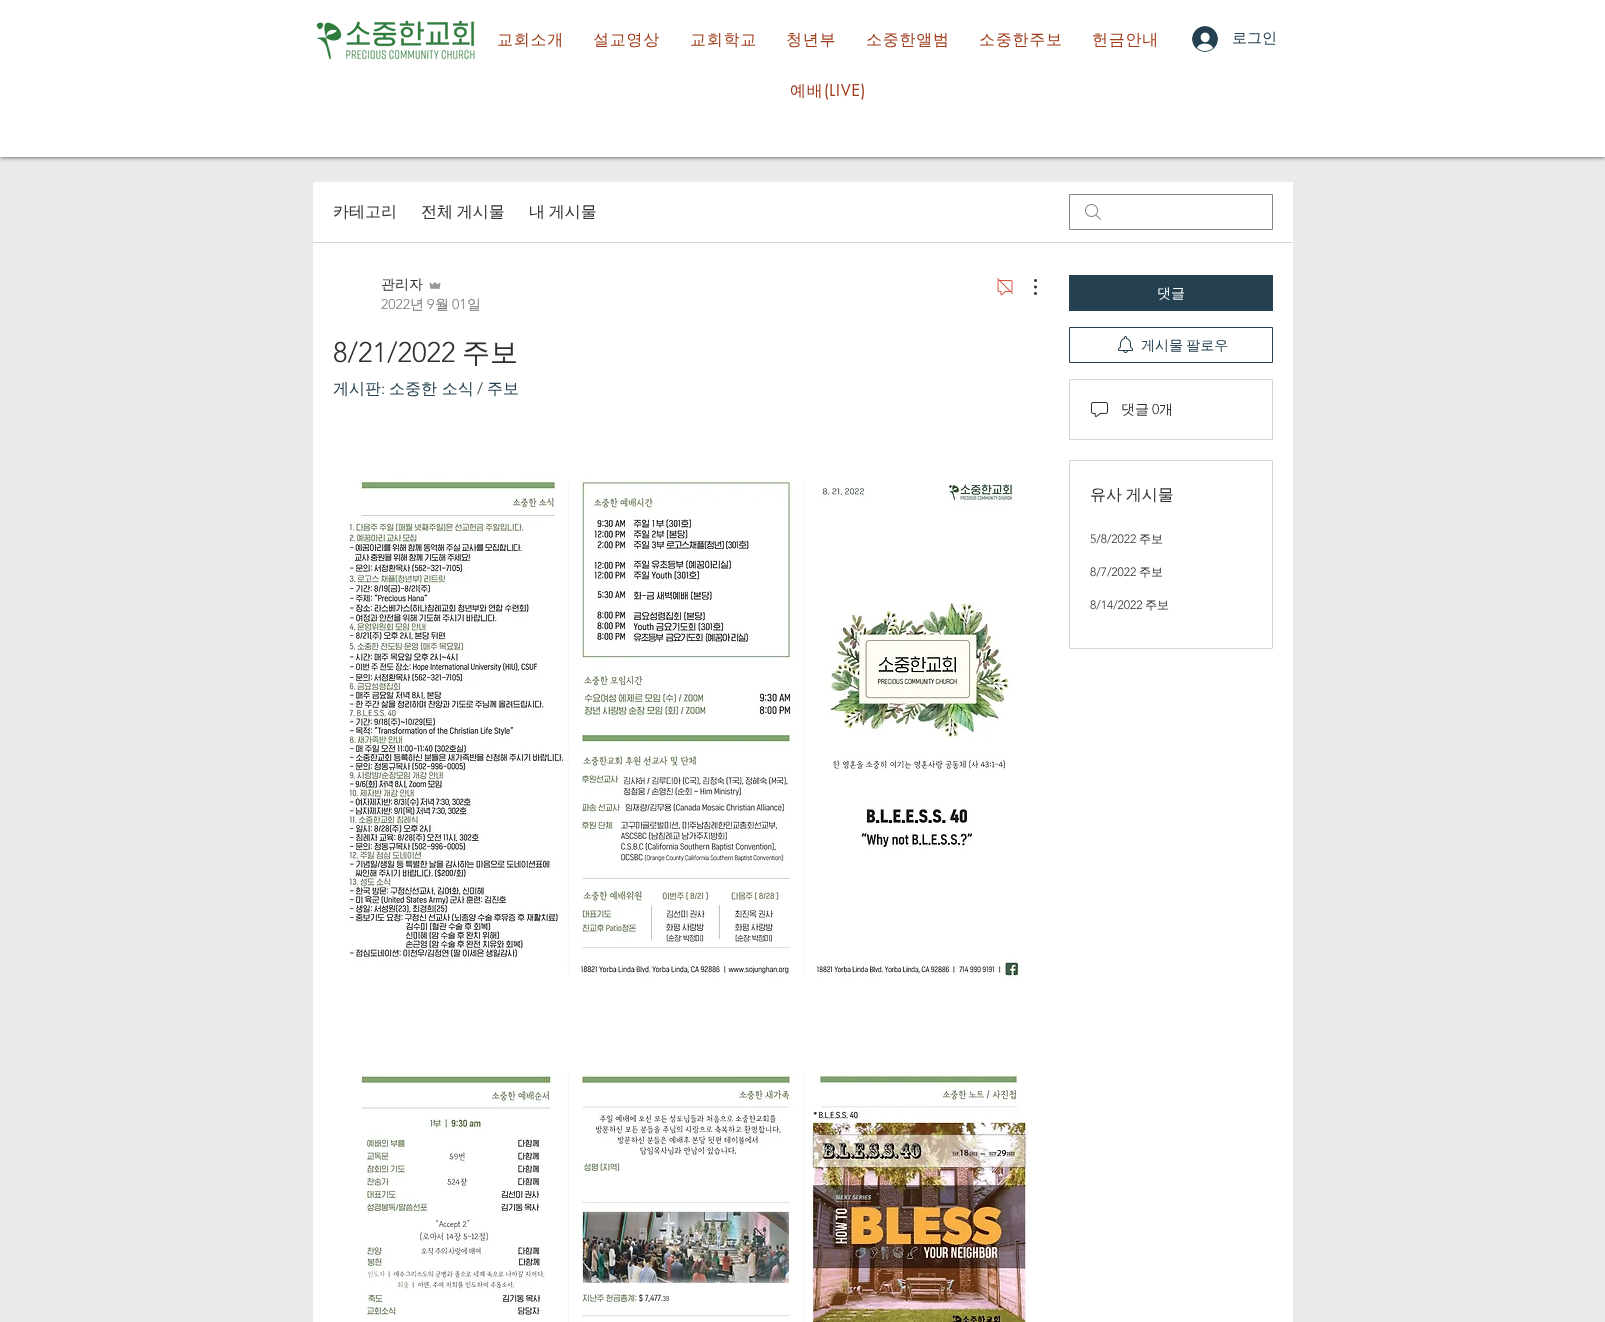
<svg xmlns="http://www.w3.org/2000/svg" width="1605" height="1322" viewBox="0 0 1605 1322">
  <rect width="100%" height="100%" fill="#eaeae8"/>
  <path d="M0 0h1605v157H0z" fill="#000000b3" filter="blur(2.5px)"/>
  <path d="M0 0h1605v157H0z" fill="#fff"/>
  <image x="316" y="20" width="159" height="40" href="img/1.png"/>
  <image x="1192" y="26" width="26" height="26" href="img/2.png"/>
  <path d="M313 182h980v1140H313z" fill="#fff"/>
  <path d="M313 242h980v1H313z" fill="#d5d5d5"/>
  <image x="1085" y="204" width="16" height="16" href="img/3.png"/>
  <path d="M1069.5 194.5h203v35H1069.5z" fill="none" stroke="#828282"/>
  <image x="429" y="282" width="12" height="7" href="img/4.png"/>
  <image x="997" y="278" width="16" height="18" href="img/5.png"/>
  <image x="1034" y="279" width="3" height="16" href="img/6.png"/>
  <image x="348" y="479" width="673" height="499" href="img/7.png"/>
  <image x="360" y="1073" width="669" height="249" href="img/8.png"/>
  <path d="M1069 275h204v36H1069z" fill="#254151"/>
  <path d="M1069.5 327.5h203v35H1069.5z" fill="none" stroke="#254151"/>
  <image x="1118" y="336" width="15" height="17" href="img/9.png"/>
  <path d="M1069.5 379.5h203v60H1069.5z" fill="none" stroke="#d5d5d5"/>
  <image x="1091" y="402" width="17" height="15" href="img/10.png"/>
  <path d="M1069.5 460.5h203v188H1069.5z" fill="none" stroke="#d5d5d5"/>
  <g font-family="WenQuanYi Zen Hei" font-size="16" font-weight="500" letter-spacing="0.75" fill="#9e3b1b">
    <text x="497" y="45">교회소개</text>
    <text x="593" y="45">설교영상</text>
    <text x="690" y="45">교회학교</text>
    <text x="786" y="45">청년부</text>
    <text x="866" y="45">소중한앨범</text>
    <text x="979" y="45">소중한주보</text>
    <text x="1092" y="45">헌금안내</text>
    <text x="790" y="96">예배</text>
  </g>
  <text x="824" y="96" font-family="futura" font-size="16" letter-spacing="0.75" fill="#9e3b1b">(LIVE)</text>
  <text x="1232" y="43" font-family="WenQuanYi Zen Hei" font-size="15" font-weight="500" fill="#254151">로그인</text>
  <g font-family="WenQuanYi Zen Hei" font-size="16" font-weight="500" fill="#2f2f2e">
    <text x="333" y="217">카테고리</text>
    <text x="421" y="217" word-spacing="-1">전체 게시물</text>
    <text x="529" y="217" word-spacing="-1">내 게시물</text>
  </g>
  <text x="381" y="289" font-family="WenQuanYi Zen Hei" font-size="14" font-weight="500" fill="#2f2f2e">관리자</text>
  <text x="381" y="309" font-family="'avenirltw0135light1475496'" font-size="14" font-weight="300" fill="#7a7a79">2022</text>
  <text x="410" y="309" font-family="WenQuanYi Zen Hei" font-size="14" font-weight="500" fill="#7a7a79">년</text>
  <text x="427" y="309" font-family="'avenirltw0135light1475496'" font-size="14" font-weight="300" fill="#7a7a79">9</text>
  <text x="435" y="309" font-family="WenQuanYi Zen Hei" font-size="14" font-weight="500" fill="#7a7a79">월</text>
  <text x="452" y="309" font-family="'avenirltw0135light1475496'" font-size="14" font-weight="300" fill="#7a7a79">01</text>
  <text x="467" y="309" font-family="WenQuanYi Zen Hei" font-size="14" font-weight="500" fill="#7a7a79">일</text>
  <text x="333" y="362" font-family="'avenirltw0135light1475496'" font-size="28" font-weight="300" fill="#2f2f2e">8/21/2022</text>
  <text x="462" y="362" font-family="WenQuanYi Zen Hei" font-size="28" font-weight="500" fill="#2f2f2e">주보</text>
  <text x="333" y="394" font-family="WenQuanYi Zen Hei" font-size="16" font-weight="500" fill="#254151">게시판</text>
  <text x="381" y="394" font-family="'avenirltw0135light1475496'" font-size="16" font-weight="300" fill="#254151">:</text>
  <text x="389" y="394" font-family="WenQuanYi Zen Hei" font-size="16" font-weight="500" fill="#254151">소중한 소식</text>
  <text x="477" y="394" font-family="'avenirltw0135light1475496'" font-size="16" font-weight="300" fill="#254151">/</text>
  <text x="487" y="394" font-family="WenQuanYi Zen Hei" font-size="16" font-weight="500" fill="#254151">주보</text>
  <text x="1157" y="298" font-family="WenQuanYi Zen Hei" font-size="14" font-weight="500" fill="#fff">댓글</text>
  <text x="1141" y="350" word-spacing="-1" font-family="WenQuanYi Zen Hei" font-size="14" font-weight="500" fill="#254151">게시물 팔로우</text>
  <text x="1121" y="414" font-family="WenQuanYi Zen Hei" font-size="14" font-weight="500" fill="#2f2f2e">댓글</text>
  <text x="1152" y="414" font-family="'avenirltw0135light1475496'" font-size="14" font-weight="300" fill="#2f2f2e">0</text>
  <text x="1159" y="414" font-family="WenQuanYi Zen Hei" font-size="14" font-weight="500" fill="#2f2f2e">개</text>
  <text x="1090" y="500" word-spacing="-1" font-family="WenQuanYi Zen Hei" font-size="16" font-weight="500" fill="#2f2f2e">유사 게시물</text>
  <text x="1090" y="543" font-family="'avenirltw0135light1475496'" font-size="12" font-weight="300" fill="#2f2f2e">5/8/2022</text>
  <text x="1139" y="543" font-family="WenQuanYi Zen Hei" font-size="12" font-weight="500" fill="#2f2f2e">주보</text>
  <text x="1090" y="576" font-family="'avenirltw0135light1475496'" font-size="12" font-weight="300" fill="#2f2f2e">8/7/2022</text>
  <text x="1139" y="576" font-family="WenQuanYi Zen Hei" font-size="12" font-weight="500" fill="#2f2f2e">주보</text>
  <text x="1090" y="609" font-family="'avenirltw0135light1475496'" font-size="12" font-weight="300" fill="#2f2f2e">8/14/2022</text>
  <text x="1145" y="609" font-family="WenQuanYi Zen Hei" font-size="12" font-weight="500" fill="#2f2f2e">주보</text>
</svg>
